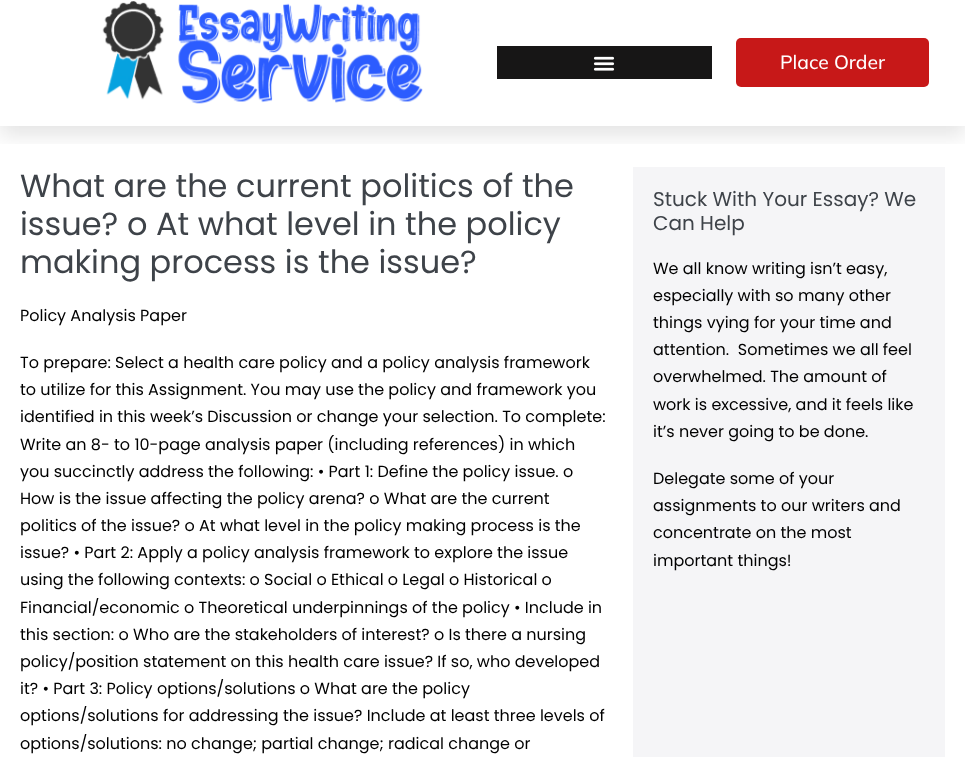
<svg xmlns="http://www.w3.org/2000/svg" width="965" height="757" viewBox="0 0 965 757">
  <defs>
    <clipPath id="clip1"><path d="M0 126h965v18H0z"/></clipPath>
  </defs>
  <rect width="100%" height="100%" fill="#fff"/>
  <g clip-path="url(#clip1)">
    <path d="M0 10h965v126H0z" fill="#0000001a" filter="blur(10px)"/>
  </g>
  <image x="102" y="1" width="321" height="103" href="img/1.png"/>
  <path d="M497 46h215v33H497z" fill="#171616"/>
  <image x="593" y="56" width="22" height="15" href="img/2.png"/>
  <rect x="736" y="38" width="193" height="49" rx="5" fill="#c71818"/>
  <path d="M633 167h312v590H633z" fill="#f5f5f7"/>
  <text x="780" y="69" font-family="Mulish" font-size="19.25" font-weight="500" fill="#fff">Place Order</text>
  <g font-family="Poppins" font-size="32" fill="#3e4349">
    <text x="20" y="197">What are the current politics of the</text>
    <text x="20" y="235">issue? o At what level in the policy</text>
    <text x="20" y="273">making process is the issue?</text>
  </g>
  <g font-family="Poppins" font-size="16" fill="#000">
    <text x="20" y="321">Policy Analysis Paper</text>
    <text x="20" y="368">To prepare: Select a health care policy and a policy analysis framework</text>
    <text x="20" y="395">to utilize for this Assignment. You may use the policy and framework you</text>
    <text x="20" y="422">identified in this week’s Discussion or change your selection. To complete:</text>
    <text x="20" y="450">Write an 8- to 10-page analysis paper (including references) in which</text>
    <text x="20" y="477">you succinctly address the following: • Part 1: Define the policy issue. o</text>
    <text x="20" y="504">How is the issue affecting the policy arena? o What are the current</text>
    <text x="20" y="531">politics of the issue? o At what level in the policy making process is the</text>
    <text x="20" y="558">issue? • Part 2: Apply a policy analysis framework to explore the issue</text>
    <text x="20" y="585">using the following contexts: o Social o Ethical o Legal o Historical o</text>
    <text x="20" y="613">Financial/economic o Theoretical underpinnings of the policy • Include in</text>
    <text x="20" y="640">this section: o Who are the stakeholders of interest? o Is there a nursing</text>
    <text x="20" y="667">policy/position statement on this health care issue? If so, who developed</text>
    <text x="20" y="694">it? • Part 3: Policy options/solutions o What are the policy</text>
    <text x="20" y="721">options/solutions for addressing the issue? Include at least three levels of</text>
    <text x="20" y="749">options/solutions: no change; partial change; radical change or</text>
  </g>
  <g font-family="Poppins" font-size="20" fill="#3e4349">
    <text x="653" y="206">Stuck With Your Essay? We</text>
    <text x="653" y="230">Can Help</text>
  </g>
  <g font-family="Poppins" font-size="16" fill="#000">
    <text x="653" y="274">We all know writing isn’t easy,</text>
    <text x="653" y="301">especially with so many other</text>
    <text x="653" y="328">things vying for your time and</text>
    <text x="653" y="355" xml:space="preserve">attention.  Sometimes we all feel</text>
    <text x="653" y="382">overwhelmed. The amount of</text>
    <text x="653" y="410">work is excessive, and it feels like</text>
    <text x="653" y="437">it’s never going to be done.</text>
    <text x="653" y="484">Delegate some of your</text>
    <text x="653" y="511">assignments to our writers and</text>
    <text x="653" y="538">concentrate on the most</text>
    <text x="653" y="566">important things!</text>
  </g>
</svg>
